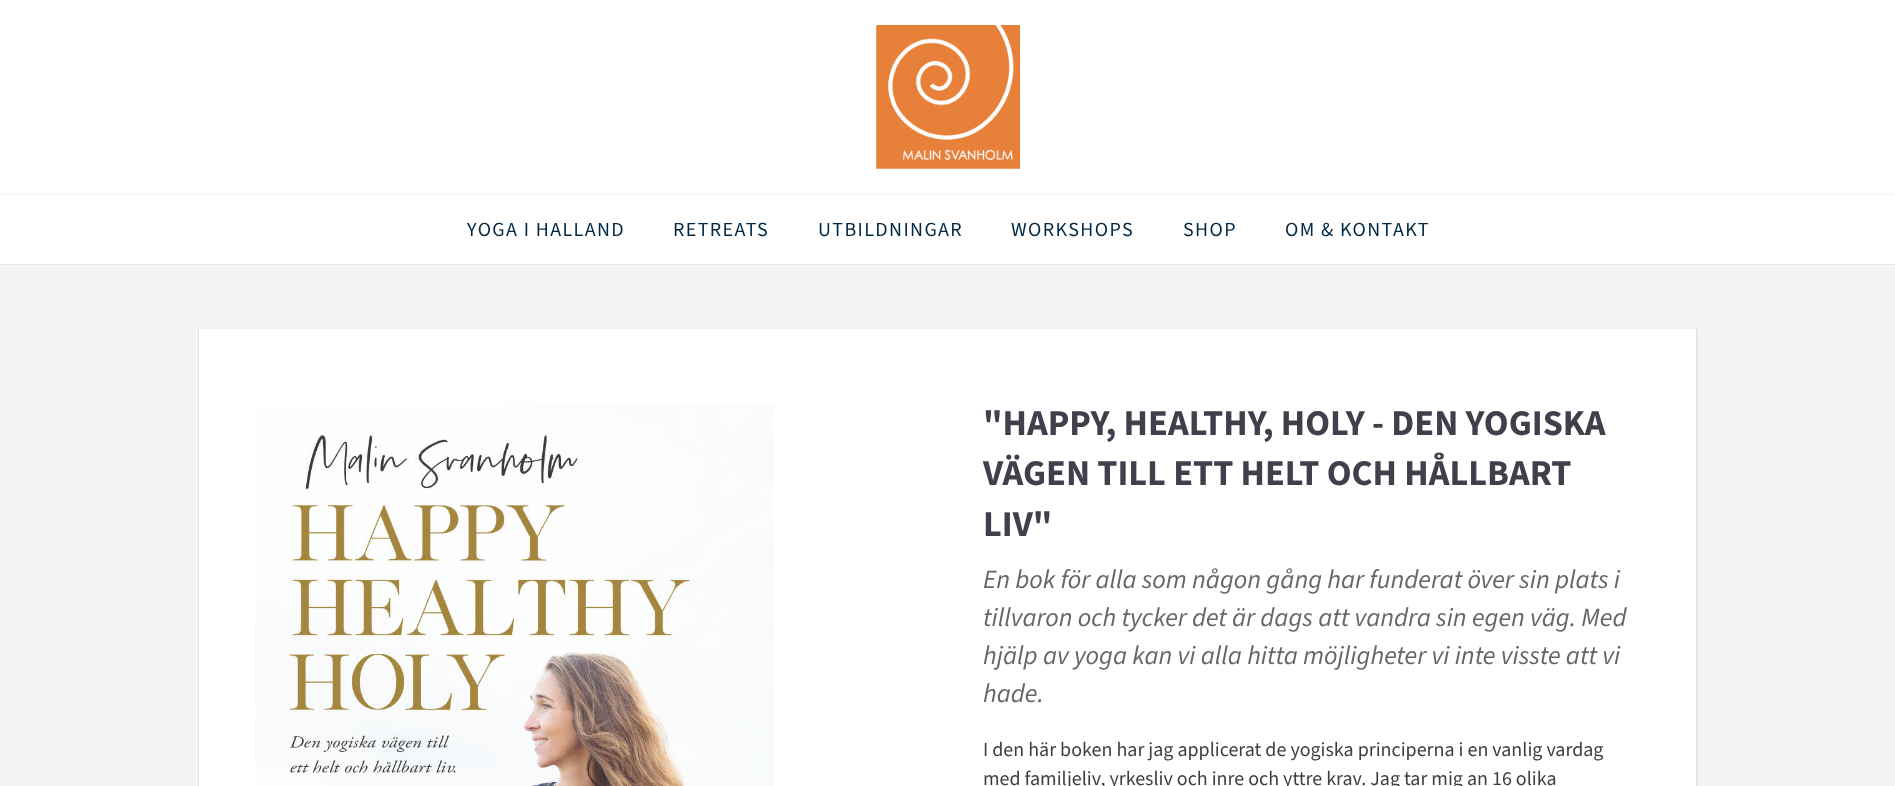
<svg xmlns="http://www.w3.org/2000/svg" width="1895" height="786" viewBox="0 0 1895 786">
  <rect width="100%" height="100%" fill="#f4f4f4"/>
  <path d="M0 0h1895v194H0z" fill="#fff"/>
  <image x="876" y="25" width="144" height="144" href="img/1.png"/>
  <path d="M0 195h1895v69H0z" fill="#fff"/>
  <path d="M0 264h1895v1H0z" fill="#e8e8e8"/>
  <path d="M198 328h1500v458H198z" fill="#fff"/>
  <path d="M198 328H1698L1696 329H199Z" fill="#f0f0f0"/>
  <path d="M1698 328V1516L1696 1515V329Z" fill="#e6e6e6"/>
  <path d="M198 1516V328L199 329V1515Z" fill="#0000001a"/>
  <image x="255" y="404" width="519" height="382" href="img/2.png"/>
  <g font-family="'Source Sans 3'" font-size="20" letter-spacing="1.4" fill="#002845">
    <text x="467" y="236">YOGA I HALLAND</text>
    <text x="673" y="236">RETREATS</text>
    <text x="818" y="236">UTBILDNINGAR</text>
    <text x="1011" y="236">WORKSHOPS</text>
    <text x="1183" y="236">SHOP</text>
    <text x="1285" y="236">OM &amp; KONTAKT</text>
  </g>
  <g font-family="'Source Sans 3'" font-size="36.25" font-weight="bold" fill="#40404c">
    <text x="983" y="435">"HAPPY, HEALTHY, HOLY - DEN YOGISKA</text>
    <text x="983" y="485">VÄGEN TILL ETT HELT OCH HÅLLBART</text>
    <text x="983" y="536">LIV"</text>
  </g>
  <g font-family="'Source Sans 3'" font-size="26.25" font-style="italic" fill="#666">
    <text x="983" y="588">En bok för alla som någon gång har funderat över sin plats i</text>
    <text x="983" y="626">tillvaron och tycker det är dags att vandra sin egen väg. Med</text>
    <text x="983" y="664">hjälp av yoga kan vi alla hitta möjligheter vi inte visste att vi</text>
    <text x="983" y="702">hade.</text>
  </g>
  <g font-family="'Source Sans 3'" font-size="20" fill="#3f3e3e">
    <text x="983" y="756">I den här boken har jag applicerat de yogiska principerna i en vanlig vardag</text>
    <text x="983" y="785">med familjeliv, yrkesliv och inre och yttre krav. Jag tar mig an 16 olika</text>
  </g>
</svg>
